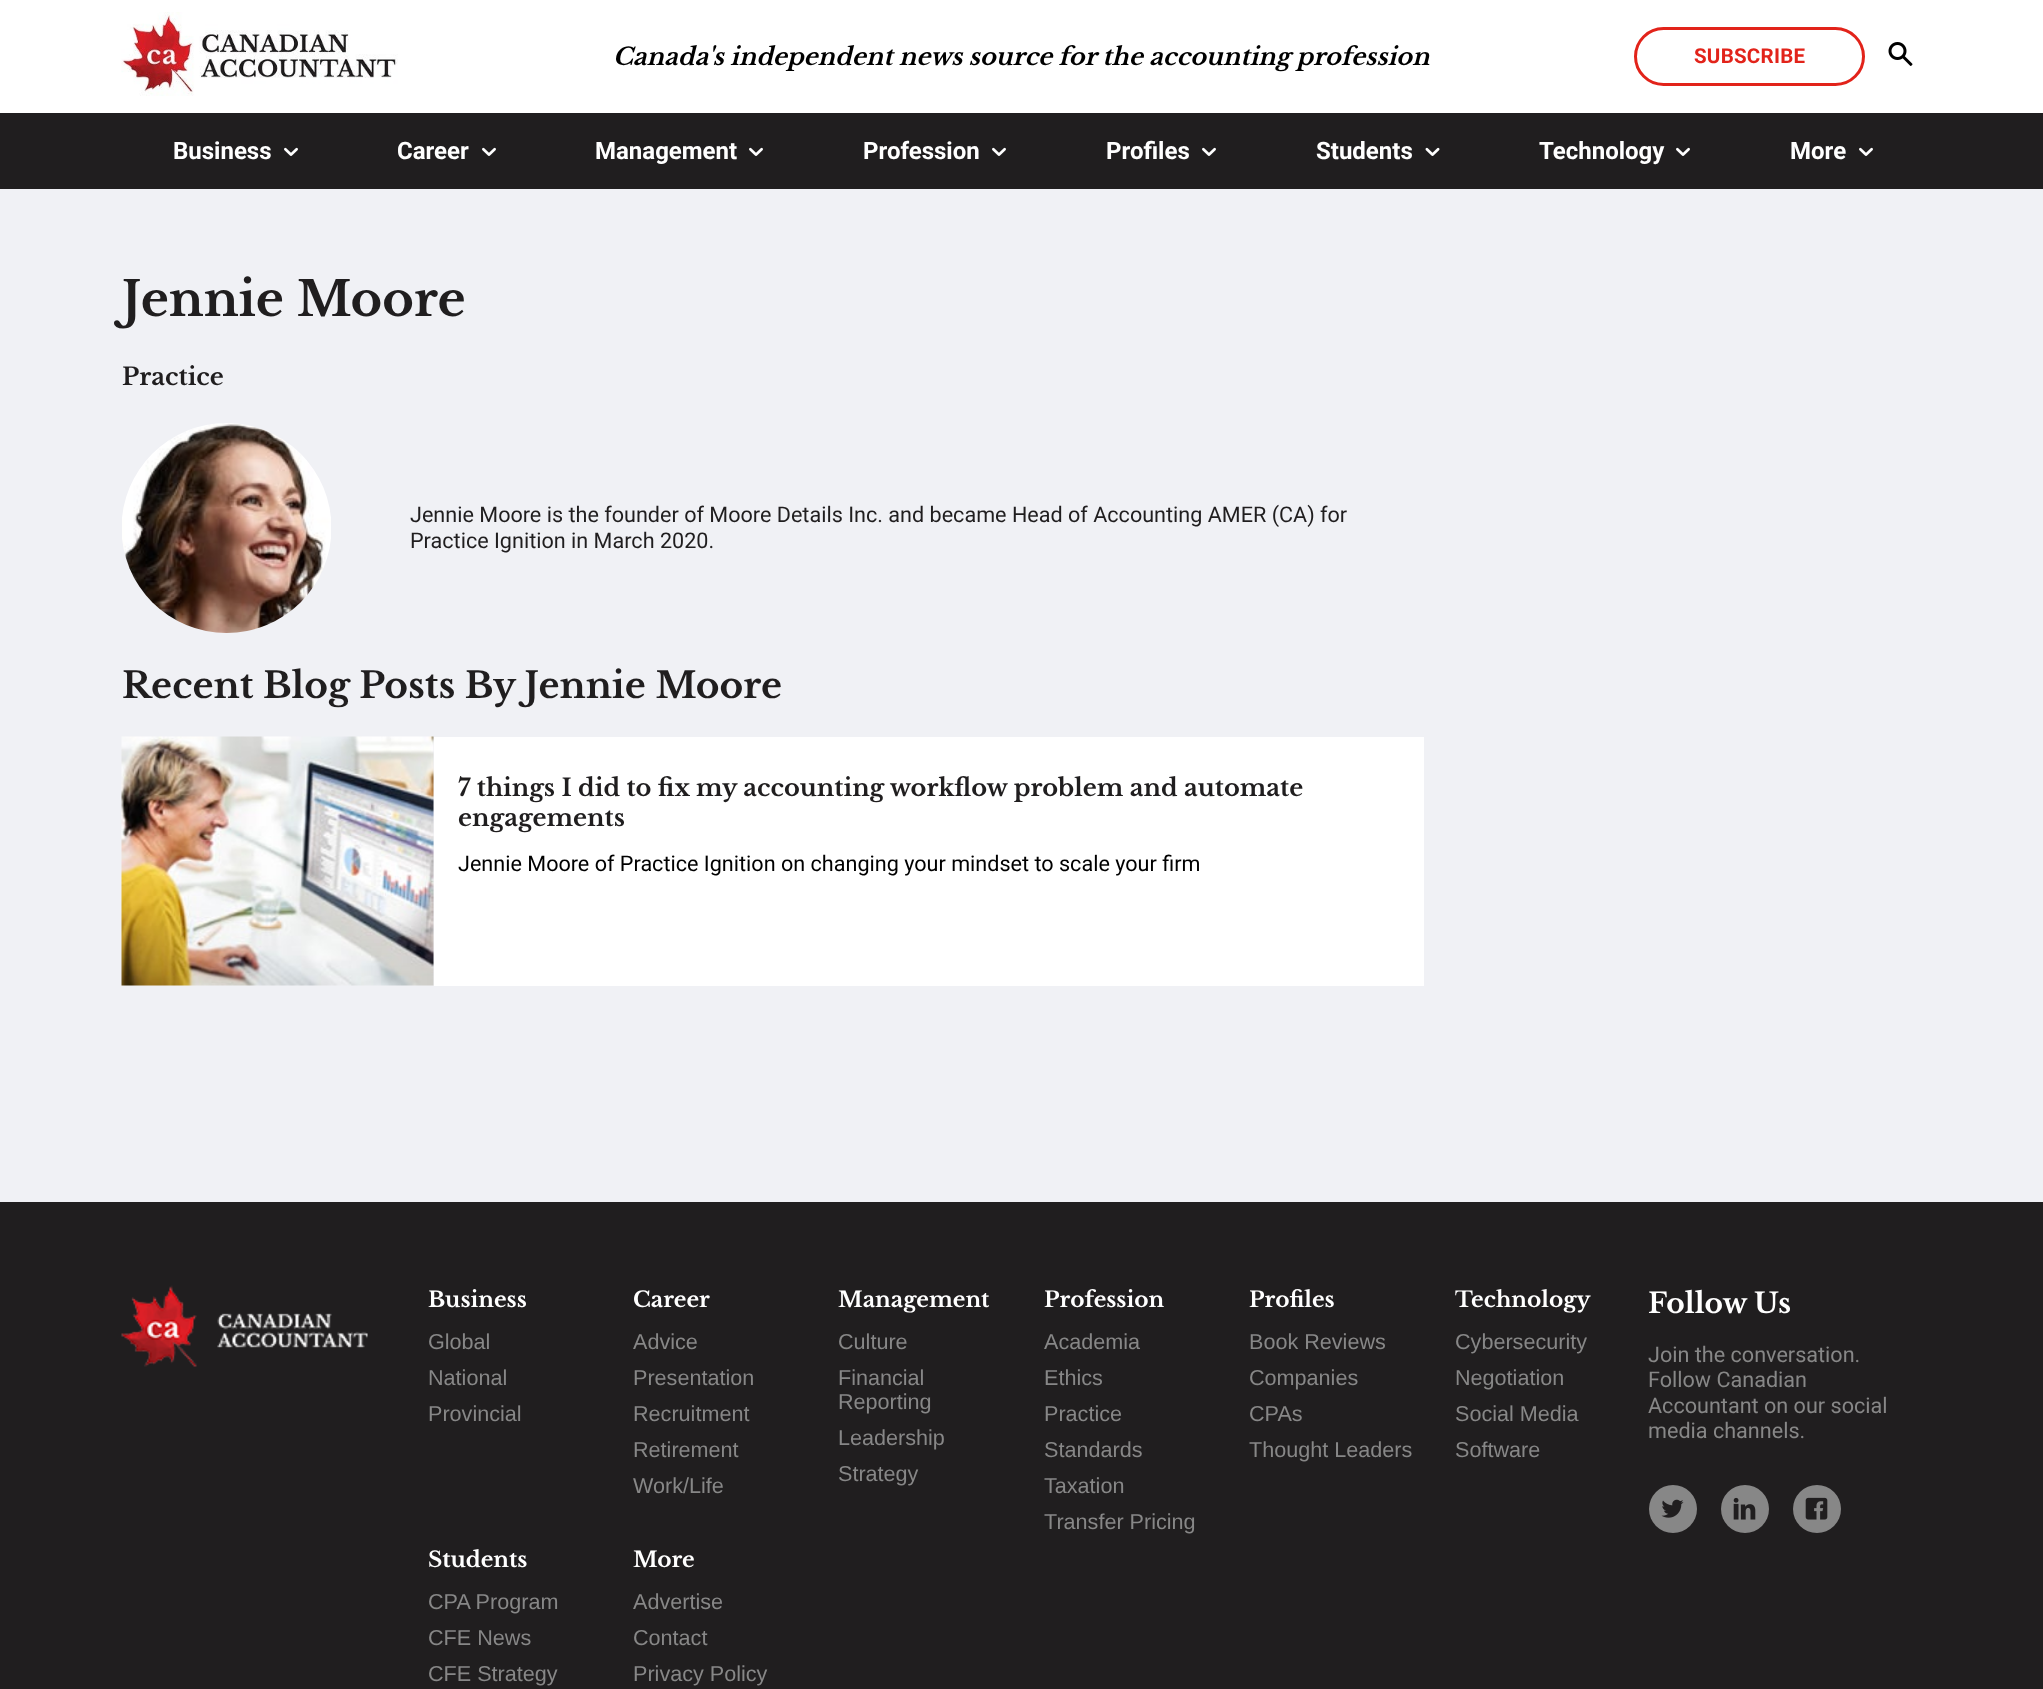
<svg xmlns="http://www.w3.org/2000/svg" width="2043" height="1689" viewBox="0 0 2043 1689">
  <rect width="100%" height="100%" fill="#fff"/>
  <image x="121" y="12" width="277" height="84" href="img/1.png"/>
  <rect x="1635.5" y="28.5" width="228" height="56" rx="28" fill="none" stroke="#e2231a" stroke-width="3"/>
  <image x="1888" y="42" width="25" height="24" href="img/2.png"/>
  <path d="M0 113h2043v76H0z" fill="#201e1f"/>
  <image x="284" y="147" width="14" height="9" href="img/3.png"/>
  <image x="482" y="147" width="14" height="9" href="img/3.png"/>
  <image x="749" y="147" width="14" height="9" href="img/3.png"/>
  <image x="992" y="147" width="14" height="9" href="img/3.png"/>
  <image x="1202" y="147" width="14" height="9" href="img/3.png"/>
  <image x="1425" y="147" width="15" height="9" href="img/4.png"/>
  <image x="1676" y="147" width="14" height="9" href="img/3.png"/>
  <image x="1859" y="147" width="14" height="9" href="img/3.png"/>
  <path d="M0 189h2043v1013H0z" fill="#f0f1f5"/>
  <image x="122" y="423" width="209" height="210" href="img/5.png"/>
  <image x="121" y="736" width="313" height="250" href="img/6.png"/>
  <path d="M434 737h990v249H434z" fill="#fff"/>
  <path d="M0 1202h2043v487H0z" fill="#201e1f"/>
  <image x="121" y="1285" width="247" height="82" href="img/7.png"/>
  <circle cx="1673" cy="1509" r="24" fill="#878787"/>
  <image x="1661" y="1499" width="23" height="19" href="img/8.png"/>
  <circle cx="1745" cy="1509" r="24" fill="#878787"/>
  <image x="1733" y="1497" width="23" height="23" href="img/9.png"/>
  <circle cx="1817" cy="1509" r="24" fill="#878787"/>
  <image x="1805" y="1497" width="23" height="23" href="img/10.png"/>
  <text x="613" y="65" font-family="Libre Baskerville" font-size="24" font-weight="bold" font-style="italic" fill="#000">Canada's independent news source for the accounting profession</text>
  <text x="1694" y="63" font-family="Roboto" font-size="20.5" font-weight="bold" letter-spacing="0.25" fill="#e2231a">SUBSCRIBE</text>
  <g font-family="Roboto" font-size="24" font-weight="bold" fill="#fff">
    <text x="173" y="159">Business</text>
    <text x="397" y="159">Career</text>
    <text x="595" y="159">Management</text>
    <text x="863" y="159">Profession</text>
    <text x="1106" y="159">Profiles</text>
    <text x="1316" y="159">Students</text>
    <text x="1539" y="159">Technology</text>
    <text x="1790" y="159">More</text>
  </g>
  <text x="122" y="316" font-family="Libre Baskerville" font-size="48" font-weight="bold" fill="#201e1f">Jennie Moore</text>
  <text x="122" y="385" font-family="Libre Baskerville" font-size="24" font-weight="bold" fill="#201e1f">Practice</text>
  <g font-family="Roboto" font-size="21.6" fill="#201e1f">
    <text x="410" y="522">Jennie Moore is the founder of Moore Details Inc. and became Head of Accounting AMER (CA) for</text>
    <text x="410" y="548">Practice Ignition in March 2020.</text>
  </g>
  <text x="122" y="698" font-family="Libre Baskerville" font-size="36" font-weight="bold" fill="#201e1f">Recent Blog Posts By Jennie Moore</text>
  <g font-family="Libre Baskerville" font-size="24" font-weight="bold" fill="#201e1f">
    <text x="458" y="796">7 things I did to fix my accounting workflow problem and automate</text>
    <text x="458" y="826">engagements</text>
  </g>
  <text x="458" y="871" font-family="Roboto" font-size="21.6" fill="#000">Jennie Moore of Practice Ignition on changing your mindset to scale your firm</text>
  <text x="428" y="1307" font-family="Libre Baskerville" font-size="21.6" font-weight="bold" fill="#fff">Business</text>
  <g font-family="Liberation Sans" font-size="21.6" fill="#878787">
    <text x="428" y="1349">Global</text>
    <text x="428" y="1385">National</text>
    <text x="428" y="1421">Provincial</text>
  </g>
  <text x="633" y="1307" font-family="Libre Baskerville" font-size="21.6" font-weight="bold" fill="#fff">Career</text>
  <g font-family="Liberation Sans" font-size="21.6" fill="#878787">
    <text x="633" y="1349">Advice</text>
    <text x="633" y="1385">Presentation</text>
    <text x="633" y="1421">Recruitment</text>
    <text x="633" y="1457">Retirement</text>
    <text x="633" y="1493">Work/Life</text>
  </g>
  <text x="838" y="1307" font-family="Libre Baskerville" font-size="21.6" font-weight="bold" fill="#fff">Management</text>
  <g font-family="Liberation Sans" font-size="21.6" fill="#878787">
    <text x="838" y="1349">Culture</text>
    <text x="838" y="1385">Financial</text>
    <text x="838" y="1409">Reporting</text>
    <text x="838" y="1445">Leadership</text>
    <text x="838" y="1481">Strategy</text>
  </g>
  <text x="1044" y="1307" font-family="Libre Baskerville" font-size="21.6" font-weight="bold" fill="#fff">Profession</text>
  <g font-family="Liberation Sans" font-size="21.6" fill="#878787">
    <text x="1044" y="1349">Academia</text>
    <text x="1044" y="1385">Ethics</text>
    <text x="1044" y="1421">Practice</text>
    <text x="1044" y="1457">Standards</text>
    <text x="1044" y="1493">Taxation</text>
    <text x="1044" y="1529">Transfer Pricing</text>
  </g>
  <text x="1249" y="1307" font-family="Libre Baskerville" font-size="21.6" font-weight="bold" fill="#fff">Profiles</text>
  <g font-family="Liberation Sans" font-size="21.6" fill="#878787">
    <text x="1249" y="1349">Book Reviews</text>
    <text x="1249" y="1385">Companies</text>
    <text x="1249" y="1421">CPAs</text>
    <text x="1249" y="1457">Thought Leaders</text>
  </g>
  <text x="1455" y="1307" font-family="Libre Baskerville" font-size="21.6" font-weight="bold" fill="#fff">Technology</text>
  <g font-family="Liberation Sans" font-size="21.6" fill="#878787">
    <text x="1455" y="1349">Cybersecurity</text>
    <text x="1455" y="1385">Negotiation</text>
    <text x="1455" y="1421">Social Media</text>
    <text x="1455" y="1457">Software</text>
  </g>
  <text x="428" y="1567" font-family="Libre Baskerville" font-size="21.6" font-weight="bold" fill="#fff">Students</text>
  <g font-family="Liberation Sans" font-size="21.6" fill="#878787">
    <text x="428" y="1609">CPA Program</text>
    <text x="428" y="1645">CFE News</text>
    <text x="428" y="1681">CFE Strategy</text>
  </g>
  <text x="633" y="1567" font-family="Libre Baskerville" font-size="21.6" font-weight="bold" fill="#fff">More</text>
  <g font-family="Liberation Sans" font-size="21.6" fill="#878787">
    <text x="633" y="1609">Advertise</text>
    <text x="633" y="1645">Contact</text>
    <text x="633" y="1681">Privacy Policy</text>
  </g>
  <text x="1648" y="1313" font-family="Libre Baskerville" font-size="28" font-weight="bold" fill="#fff">Follow Us</text>
  <g font-family="Roboto" font-size="21.6" fill="#878787">
    <text x="1648" y="1362">Join the conversation.</text>
    <text x="1648" y="1387">Follow Canadian</text>
    <text x="1648" y="1413">Accountant on our social</text>
    <text x="1648" y="1438">media channels.</text>
  </g>
</svg>
